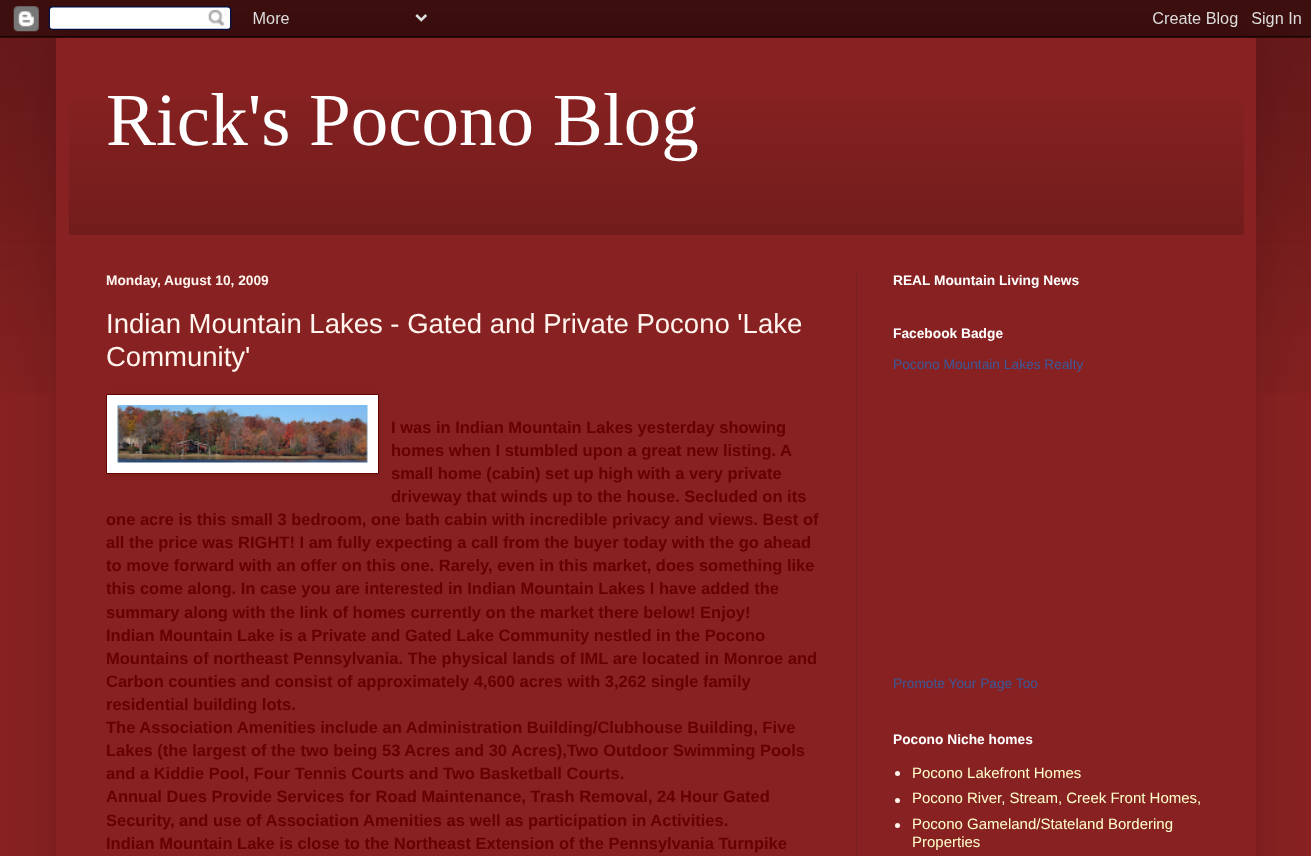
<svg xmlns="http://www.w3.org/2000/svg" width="1311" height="856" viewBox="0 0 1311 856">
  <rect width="100%" height="100%" fill="#822"/>
  <image x="0" y="0" width="1311" height="393" href="img/1.png"/>
  <path d="M56 38h1200v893H56z" fill="#00000026" filter="blur(25px)"/>
  <image x="0" y="0" width="1311" height="38" href="img/2.png"/>
  <path d="M56 38h1200v818H56z" fill="#822"/>
  <image x="68" y="102" width="1176" height="133" href="img/3.png"/>
  <path d="M856 273h1v583H856z" fill="#722"/>
  <path d="M108 395h272v80H108z" fill="#0000001a" filter="blur(3px)"/>
  <path d="M106.5 394.5h272v79H106.5z" fill="#fff" stroke="#600"/>
  <image x="117" y="405" width="251" height="58" href="img/4.png"/>
  <circle cx="897.5" cy="773.5" r="2.5" fill="#fff5ee"/>
  <circle cx="897.5" cy="800.5" r="2.5" fill="#fff5ee"/>
  <circle cx="897.5" cy="825.5" r="2.5" fill="#fff5ee"/>
  <text x="106" y="145" font-family="Liberation Serif" font-size="75" fill="#fff">Rick's Pocono Blog</text>
  <text x="106" y="285" font-family="Liberation Sans" font-size="13.75" font-weight="bold" fill="#fff5ee">Monday, August 10, 2009</text>
  <g font-family="Liberation Sans" font-size="27.5" fill="#fff5ee">
    <text x="106" y="333">Indian Mountain Lakes - Gated and Private Pocono 'Lake</text>
    <text x="106" y="366">Community'</text>
  </g>
  <g font-family="Liberation Sans" font-size="16.5" font-weight="bold" fill="#600">
    <text x="391" y="433">I was in Indian Mountain Lakes yesterday showing</text>
    <text x="391" y="456">homes when I stumbled upon a great new listing. A</text>
    <text x="391" y="479">small home (cabin) set up high with a very private</text>
    <text x="391" y="502">driveway that winds up to the house. Secluded on its</text>
    <text x="106" y="525">one acre is this small 3 bedroom, one bath cabin with incredible privacy and views. Best of</text>
    <text x="106" y="548">all the price was RIGHT! I am fully expecting a call from the buyer today with the go ahead</text>
    <text x="106" y="571">to move forward with an offer on this one. Rarely, even in this market, does something like</text>
    <text x="106" y="594">this come along. In case you are interested in Indian Mountain Lakes I have added the</text>
    <text x="106" y="618">summary along with the link of homes currently on the market there below! Enjoy!</text>
    <text x="106" y="641">Indian Mountain Lake is a Private and Gated Lake Community nestled in the Pocono</text>
    <text x="106" y="664">Mountains of northeast Pennsylvania. The physical lands of IML are located in Monroe and</text>
    <text x="106" y="687">Carbon counties and consist of approximately 4,600 acres with 3,262 single family</text>
    <text x="106" y="710">residential building lots.</text>
    <text x="106" y="733">The Association Amenities include an Administration Building/Clubhouse Building, Five</text>
    <text x="106" y="756">Lakes (the largest of the two being 53 Acres and 30 Acres),Two Outdoor Swimming Pools</text>
    <text x="106" y="779">and a Kiddie Pool, Four Tennis Courts and Two Basketball Courts.</text>
    <text x="106" y="802">Annual Dues Provide Services for Road Maintenance, Trash Removal, 24 Hour Gated</text>
    <text x="106" y="826">Security, and use of Association Amenities as well as participation in Activities.</text>
    <text x="106" y="849">Indian Mountain Lake is close to the Northeast Extension of the Pennsylvania Turnpike</text>
  </g>
  <g font-family="Liberation Sans" font-size="13.75" font-weight="bold" fill="#fff">
    <text x="893" y="285">REAL Mountain Living News</text>
    <text x="893" y="338">Facebook Badge</text>
  </g>
  <g font-family="Liberation Sans" font-size="13.75" fill="#3b5998">
    <text x="893" y="369">Pocono Mountain Lakes Realty</text>
    <text x="893" y="688">Promote Your Page Too</text>
  </g>
  <text x="893" y="744" font-family="Liberation Sans" font-size="13.75" font-weight="bold" fill="#fff">Pocono Niche homes</text>
  <g font-family="Liberation Sans" font-size="15" fill="#ffc">
    <text x="912" y="778">Pocono Lakefront Homes</text>
    <text x="912" y="803">Pocono River, Stream, Creek Front Homes,</text>
    <text x="912" y="829">Pocono Gameland/Stateland Bordering</text>
    <text x="912" y="847">Properties</text>
  </g>
</svg>
